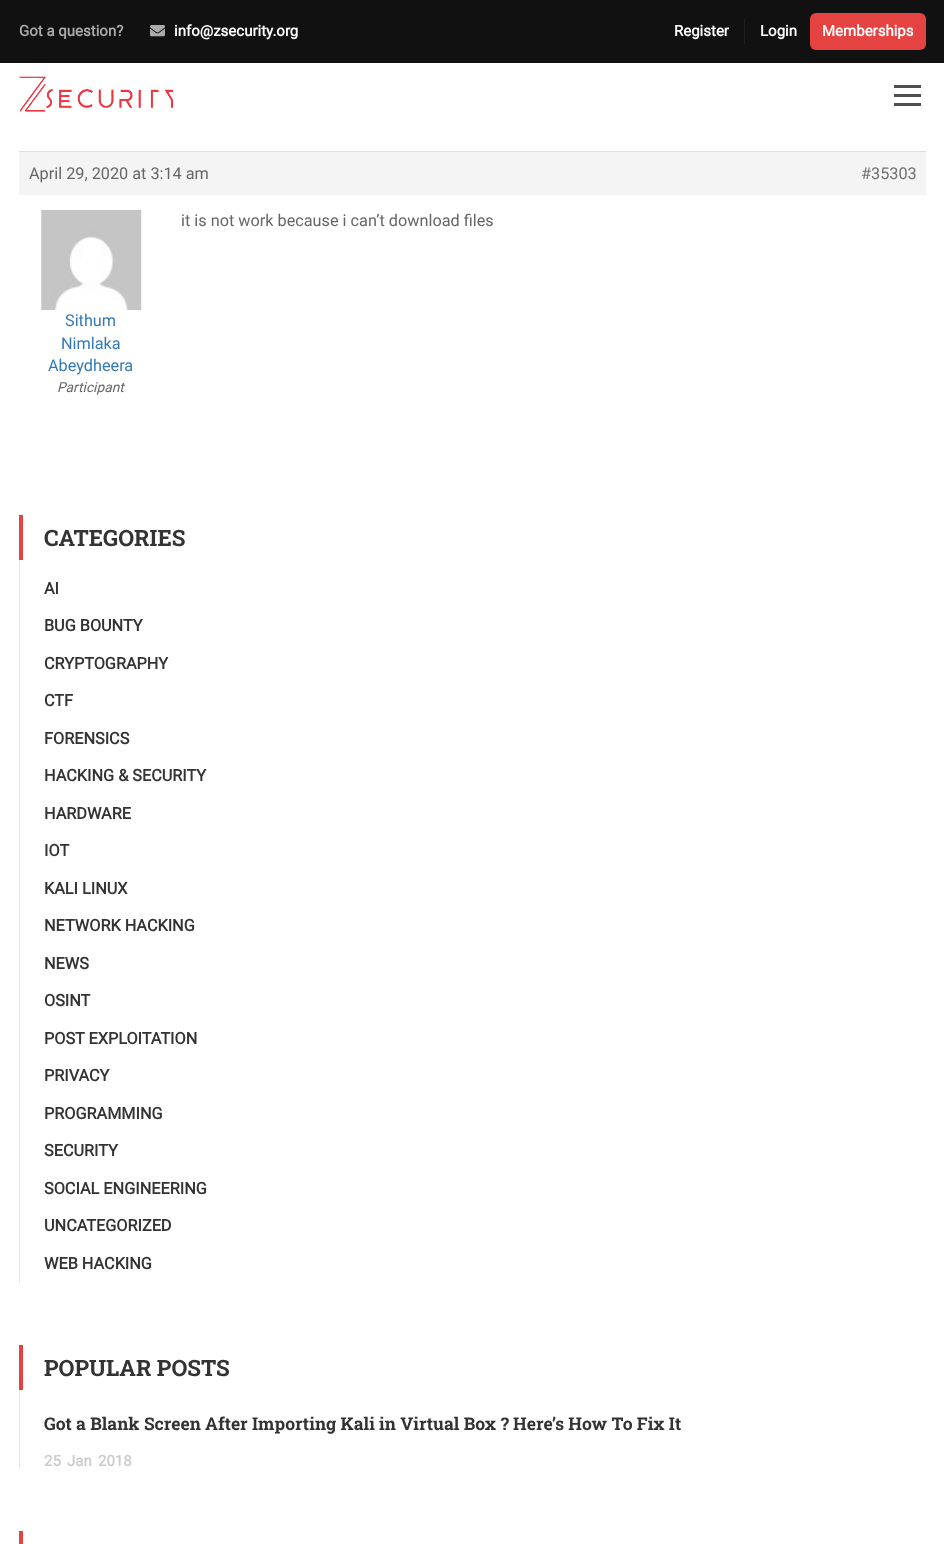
<svg xmlns="http://www.w3.org/2000/svg" width="944" height="1544" viewBox="0 0 944 1544">
  <rect width="100%" height="100%" fill="#fff"/>
  <path d="M0 0h944v63H0z" fill="#111"/>
  <image x="150" y="25" width="15" height="12" href="img/1.png"/>
  <path d="M744 19h1v25H744z" fill="#212121"/>
  <rect x="810" y="13" width="116" height="37" rx="6" fill="#e54242"/>
  <image x="19" y="76" width="155" height="36" href="img/2.png"/>
  <path d="M894 85h27v3H894z" fill="#4f4f4f"/>
  <path d="M894 94h27v3H894z" fill="#4f4f4f"/>
  <path d="M894 103h27v3H894z" fill="#4f4f4f"/>
  <path d="M19 152h907v43H19z" fill="#f4f4f4"/>
  <path d="M19 151h907v1H19z" fill="#ddd"/>
  <image x="41" y="210" width="101" height="100" href="img/3.png"/>
  <path d="M19 515h4v45H19z" fill="#e54242"/>
  <path d="M19 560h1v723H19z" fill="#e5e5e5"/>
  <path d="M19 1345h4v45H19z" fill="#e54242"/>
  <path d="M19 1390h1v79H19z" fill="#e5e5e5"/>
  <path d="M19 1531h4v13H19z" fill="#e54242"/>
  <text x="19" y="36" font-family="Roboto" font-size="15" font-weight="bold" fill="#ababab">Got a question?</text>
  <g font-family="Roboto" font-size="15" font-weight="bold" fill="#fff">
    <text x="174" y="36">info@zsecurity.org</text>
    <text x="674" y="36">Register</text>
    <text x="760" y="36">Login</text>
    <text x="822" y="36">Memberships</text>
  </g>
  <text x="29" y="179" font-family="Roboto" font-size="16.25" fill="#666">April 29, 2020 at 3:14 am</text>
  <text x="861" y="179" font-family="Roboto" font-size="16.25" fill="#707070">#35303</text>
  <text x="181" y="226" font-family="Roboto" font-size="16.25" fill="#666">it is not work because i can’t download files</text>
  <g font-family="Roboto" font-size="16.25" fill="#337ab7">
    <text x="65" y="326">Sithum</text>
    <text x="61" y="349">Nimlaka</text>
    <text x="48" y="371">Abeydheera</text>
  </g>
  <text x="57" y="392" font-family="Roboto" font-size="13.75" font-style="italic" fill="#666">Participant</text>
  <text x="44" y="546" font-family="Roboto Slab" font-size="22.5" font-weight="bold" fill="#333">CATEGORIES</text>
  <g font-family="Roboto" font-size="16.25" font-weight="bold" fill="#333">
    <text x="44" y="594">AI</text>
    <text x="44" y="631">BUG BOUNTY</text>
    <text x="44" y="669">CRYPTOGRAPHY</text>
    <text x="44" y="706">CTF</text>
    <text x="44" y="744">FORENSICS</text>
    <text x="44" y="781">HACKING &amp; SECURITY</text>
    <text x="44" y="819">HARDWARE</text>
    <text x="44" y="856">IOT</text>
    <text x="44" y="894">KALI LINUX</text>
    <text x="44" y="931">NETWORK HACKING</text>
    <text x="44" y="969">NEWS</text>
    <text x="44" y="1006">OSINT</text>
    <text x="44" y="1044">POST EXPLOITATION</text>
    <text x="44" y="1081">PRIVACY</text>
    <text x="44" y="1119">PROGRAMMING</text>
    <text x="44" y="1156">SECURITY</text>
    <text x="44" y="1194">SOCIAL ENGINEERING</text>
    <text x="44" y="1231">UNCATEGORIZED</text>
    <text x="44" y="1269">WEB HACKING</text>
  </g>
  <text x="44" y="1376" font-family="Roboto Slab" font-size="22.5" font-weight="bold" fill="#333">POPULAR POSTS</text>
  <text x="44" y="1430" font-family="Roboto Slab" font-size="17.5" font-weight="bold" fill="#333">Got a Blank Screen After Importing Kali in Virtual Box ? Here’s How To Fix It</text>
  <g font-family="Roboto" font-size="15" font-weight="bold" fill="#ccc">
    <text x="44" y="1466">25</text>
    <text x="67" y="1466">Jan</text>
    <text x="98" y="1466">2018</text>
  </g>
</svg>
